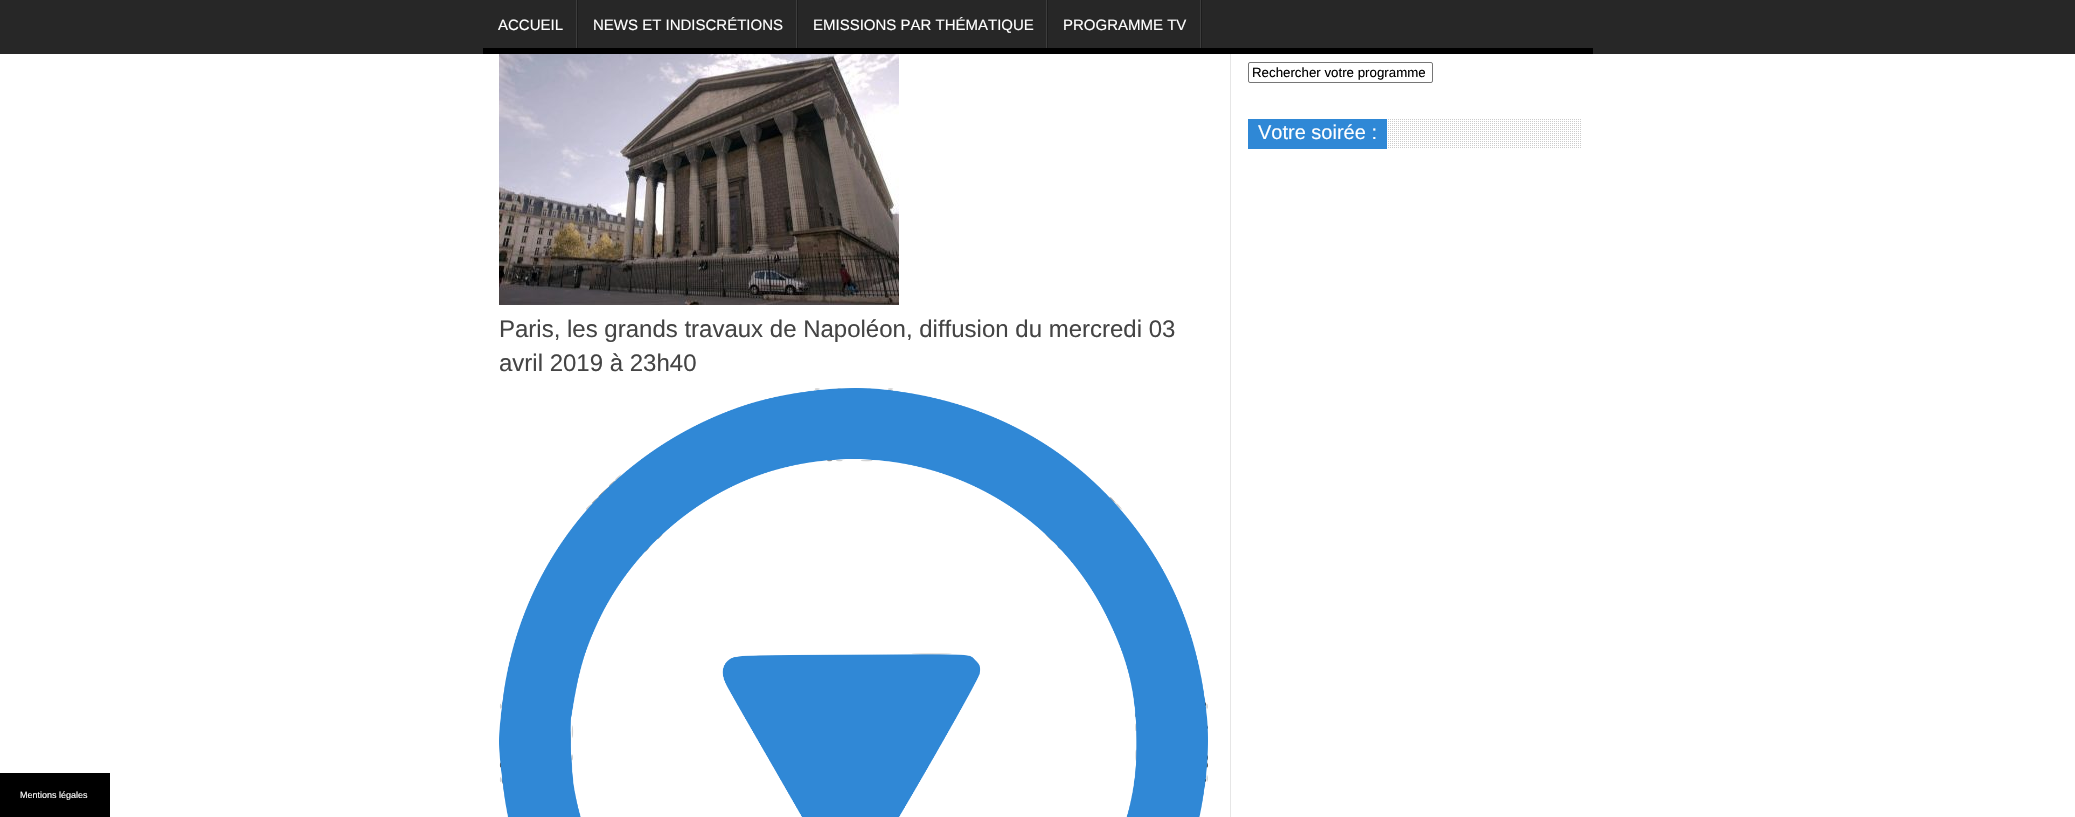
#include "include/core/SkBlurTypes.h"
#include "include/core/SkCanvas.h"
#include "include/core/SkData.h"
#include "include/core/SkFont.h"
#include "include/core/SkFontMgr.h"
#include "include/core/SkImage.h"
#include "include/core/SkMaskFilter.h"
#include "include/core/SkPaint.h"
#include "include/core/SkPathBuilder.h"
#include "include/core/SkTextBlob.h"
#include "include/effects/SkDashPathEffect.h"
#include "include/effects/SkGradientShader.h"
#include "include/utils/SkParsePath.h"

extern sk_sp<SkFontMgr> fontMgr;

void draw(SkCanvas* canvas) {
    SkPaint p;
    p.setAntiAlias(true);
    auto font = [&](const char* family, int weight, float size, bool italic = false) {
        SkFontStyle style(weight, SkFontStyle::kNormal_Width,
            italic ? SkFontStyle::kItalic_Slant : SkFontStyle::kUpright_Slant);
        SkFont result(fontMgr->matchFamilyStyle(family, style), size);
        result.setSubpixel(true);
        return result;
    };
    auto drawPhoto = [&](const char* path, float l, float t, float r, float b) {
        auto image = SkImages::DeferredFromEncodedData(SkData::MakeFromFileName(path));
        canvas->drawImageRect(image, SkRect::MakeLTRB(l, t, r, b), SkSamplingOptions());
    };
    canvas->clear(0xFFFFFFFF);
    p.setColor(0xFF272727);
    canvas->drawRect(SkRect::MakeLTRB(0, 0, 2075, 54), p);
    p.setColor(0xFF000000);
    canvas->drawRect(SkRect::MakeLTRB(1202, 48, 1593, 54), p);
    drawPhoto("media/1.png", 576, 0, 578, 48);
    drawPhoto("media/2.png", 576, 0, 578, 48);
    auto font1 = font("Liberation Sans", 400, 15);
    p.setColor(0xFFFFFFFF);
    canvas->drawString("ACCUEIL", 498, 30, font1, p);
    p.setColor(0xFF000000);
    canvas->drawRect(SkRect::MakeLTRB(483, 48, 1202, 54), p);
    drawPhoto("media/1.png", 796, 0, 798, 48);
    drawPhoto("media/2.png", 796, 0, 798, 48);
    p.setColor(0xFFFFFFFF);
    canvas->drawString("NEWS ET INDISCRÉTIONS", 593, 30, font1, p);
    drawPhoto("media/1.png", 1046, 0, 1048, 48);
    drawPhoto("media/2.png", 1046, 0, 1048, 48);
    canvas->drawString("EMISSIONS PAR THÉMATIQUE", 813, 30, font1, p);
    drawPhoto("media/1.png", 1200, 0, 1202, 48);
    drawPhoto("media/2.png", 1200, 0, 1202, 48);
    canvas->drawString("PROGRAMME TV", 1063, 30, font1, p);
    p.setStyle(SkPaint::kStroke_Style);
    p.setStrokeWidth(1);
    p.setColor(0xFF767676);
    canvas->drawRoundRect(SkRect::MakeLTRB(1248.5f, 62.5f, 1432.5f, 82.5f), 1.5f, 1.5f, p);
    auto font2 = font("Liberation Sans", 400, 13.3f);
    p.setStyle(SkPaint::kFill_Style);
    p.setColor(0xFF000000);
    canvas->drawString("Rechercher votre programme", 1252, 77, font2, p);
    drawPhoto("media/3.png", 1388, 119, 1581, 148);
    p.setColor(0xFF2F88D6);
    canvas->drawRect(SkRect::MakeLTRB(1248, 119, 1387, 149), p);
    auto font3 = font("Liberation Sans", 400, 20);
    p.setColor(0xFFFFFFFF);
    canvas->drawString("Votre soirée :", 1258, 139, font3, p);
    p.setColor(0xFFE6E6E6);
    canvas->drawRect(SkRect::MakeLTRB(1230, 54, 1231, 817), p);
    drawPhoto("media/4.png", 499, 54, 899, 305);
    auto font4 = font("Liberation Sans", 400, 24);
    p.setColor(0xFF444444);
    canvas->drawString("Paris, les grands travaux de Napoléon, diffusion du mercredi 03", 499, 337, font4, p);
    canvas->drawString("avril 2019 à 23h40", 499, 371, font4, p);
    drawPhoto("media/5.png", 499, 388, 1208, 817);
    p.setColor(0xFF000000);
    canvas->drawRect(SkRect::MakeLTRB(0, 773, 110, 817), p);
    auto font5 = font("Liberation Sans", 400, 9);
    p.setColor(0xFFFFFFFF);
    canvas->drawString("Mentions légales", 20, 798, font5, p);
}
